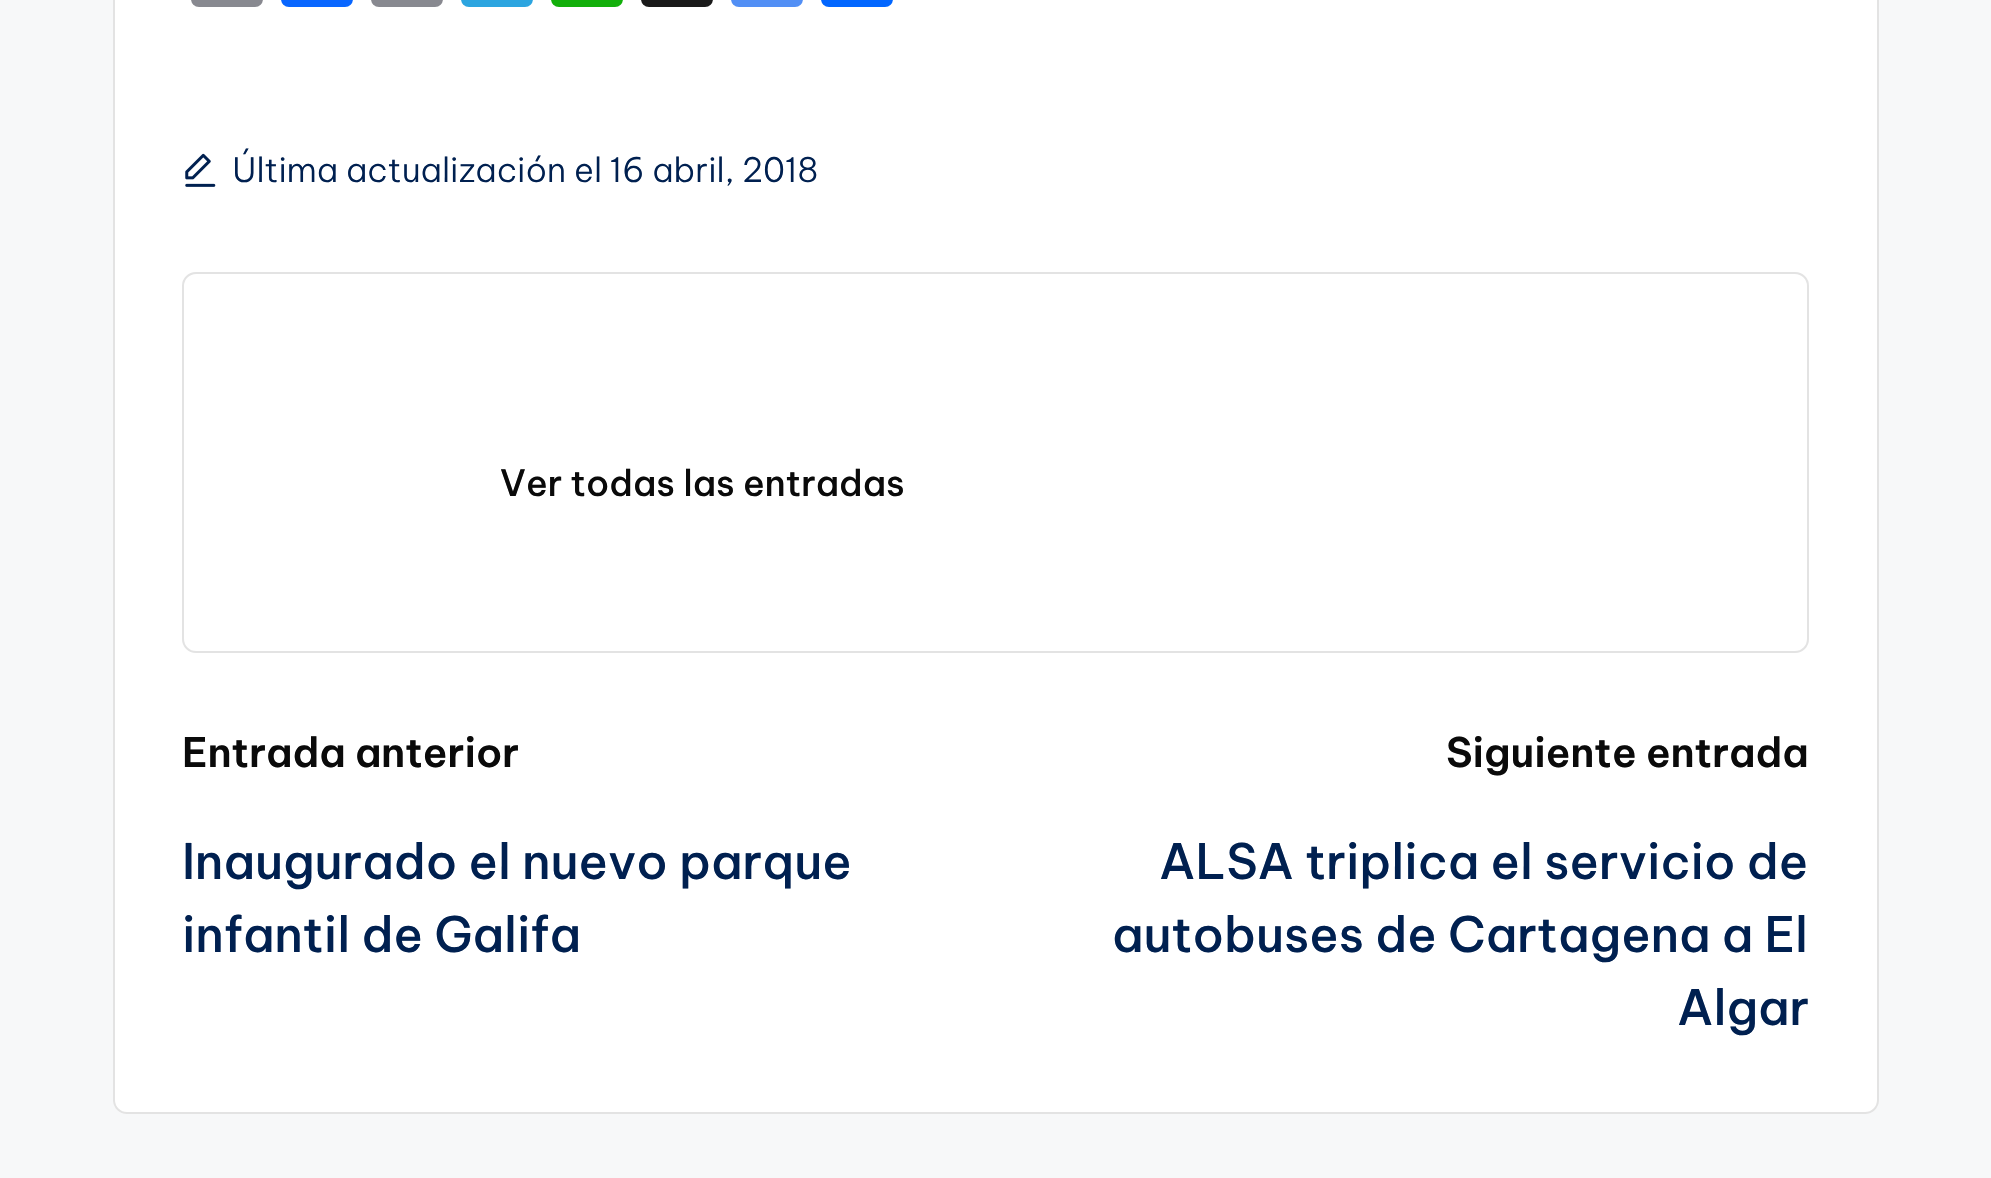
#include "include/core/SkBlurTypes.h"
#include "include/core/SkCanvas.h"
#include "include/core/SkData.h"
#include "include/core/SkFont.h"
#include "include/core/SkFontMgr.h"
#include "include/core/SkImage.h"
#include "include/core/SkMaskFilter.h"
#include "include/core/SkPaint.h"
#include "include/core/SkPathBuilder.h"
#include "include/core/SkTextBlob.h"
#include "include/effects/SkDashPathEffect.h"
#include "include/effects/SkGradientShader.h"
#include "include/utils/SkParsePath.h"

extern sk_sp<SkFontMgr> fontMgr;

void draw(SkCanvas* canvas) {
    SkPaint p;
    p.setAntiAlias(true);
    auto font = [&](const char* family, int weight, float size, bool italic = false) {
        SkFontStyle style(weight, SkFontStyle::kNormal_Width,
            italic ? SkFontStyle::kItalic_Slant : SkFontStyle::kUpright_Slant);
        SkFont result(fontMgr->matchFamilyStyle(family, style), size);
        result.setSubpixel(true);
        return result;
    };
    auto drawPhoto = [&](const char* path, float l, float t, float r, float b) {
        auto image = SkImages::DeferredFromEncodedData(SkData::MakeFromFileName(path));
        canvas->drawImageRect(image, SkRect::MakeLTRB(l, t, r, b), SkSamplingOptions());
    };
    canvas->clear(0xFFF7F8F9);
    p.setColor(0xFFFFFFFF);
    canvas->drawRoundRect(SkRect::MakeLTRB(113, -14, 1879, 1114), 14, 14, p);
    p.setStyle(SkPaint::kStroke_Style);
    p.setStrokeWidth(2);
    p.setColor(0x66B9B9B9);
    canvas->drawRoundRect(SkRect::MakeLTRB(114, -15, 1878, 1113), 13, 13, p);
    p.setStyle(SkPaint::kFill_Style);
    p.setColor(0xFF888990);
    canvas->drawRoundRect(SkRect::MakeLTRB(191, -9, 263, 7), 9, 9, p);
    p.setColor(0xFF0866FF);
    canvas->drawRoundRect(SkRect::MakeLTRB(281, -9, 353, 7), 9, 9, p);
    p.setColor(0xFF888990);
    canvas->drawRoundRect(SkRect::MakeLTRB(371, -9, 443, 7), 9, 9, p);
    p.setColor(0xFF2CA5E0);
    canvas->drawRoundRect(SkRect::MakeLTRB(461, -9, 533, 7), 9, 9, p);
    p.setColor(0xFF12AF0A);
    canvas->drawRoundRect(SkRect::MakeLTRB(551, -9, 623, 7), 9, 9, p);
    p.setColor(0xFF1A1A1A);
    canvas->drawRoundRect(SkRect::MakeLTRB(641, -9, 713, 7), 9, 9, p);
    p.setColor(0xFF528FF5);
    canvas->drawRoundRect(SkRect::MakeLTRB(731, -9, 803, 7), 9, 9, p);
    p.setColor(0xFF0166FF);
    canvas->drawRoundRect(SkRect::MakeLTRB(821, -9, 893, 7), 9, 9, p);
    drawPhoto("media/1.png", 185, 153, 216, 187);
    auto font1 = font("Be Vietnam Pro", 300, 33.6f);
    p.setColor(0xFF002050);
    canvas->drawString("Última actualización el 16 abril, 2018", 232, 182, font1, p);
    p.setStyle(SkPaint::kStroke_Style);
    p.setColor(0xFFE3E3E3);
    canvas->drawRoundRect(SkRect::MakeLTRB(183, 273, 1808, 652), 13, 13, p);
    auto font2 = font("Be Vietnam Pro", 500, 36);
    p.setStyle(SkPaint::kFill_Style);
    p.setColor(0xFF0A0A0A);
    canvas->drawString("Ver todas las entradas", 500, 496, font2, p);
    auto font3 = font("Be Vietnam Pro", 600, 40.5f);
    canvas->drawString("Entrada anterior", 182, 767, font3, p);
    auto font4 = font("Be Vietnam Pro", 500, 48.75f);
    p.setColor(0xFF002050);
    canvas->drawString("Inaugurado el nuevo parque", 182, 879, font4, p);
    canvas->drawString("infantil de Galifa", 182, 952, font4, p);
    p.setColor(0xFF0A0A0A);
    canvas->drawString("Siguiente entrada", 1446, 767, font3, p);
    p.setColor(0xFF002050);
    {
        const struct { const char* s; float x, y; } items[] = {
            {"ALSA triplica el servicio de", 1159, 879},
            {"autobuses de Cartagena a El", 1112, 952},
            {"Algar", 1677, 1025},
        };
        for (auto [s, x, y] : items) {
            canvas->drawString(s, x, y, font4, p);
        }
    }
}
